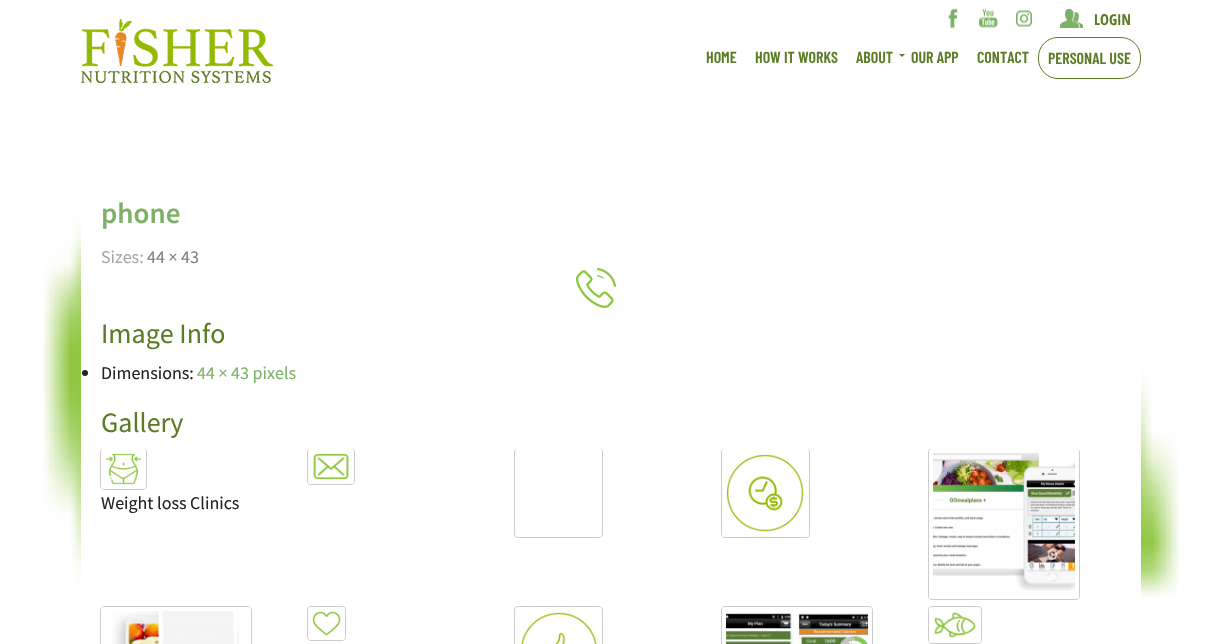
#include "include/core/SkBlurTypes.h"
#include "include/core/SkCanvas.h"
#include "include/core/SkData.h"
#include "include/core/SkFont.h"
#include "include/core/SkFontMgr.h"
#include "include/core/SkImage.h"
#include "include/core/SkMaskFilter.h"
#include "include/core/SkPaint.h"
#include "include/core/SkPathBuilder.h"
#include "include/core/SkTextBlob.h"
#include "include/effects/SkDashPathEffect.h"
#include "include/effects/SkGradientShader.h"
#include "include/utils/SkParsePath.h"

extern sk_sp<SkFontMgr> fontMgr;

void draw(SkCanvas* canvas) {
    SkPaint p;
    p.setAntiAlias(true);
    auto font = [&](const char* family, int weight, float size, bool italic = false) {
        SkFontStyle style(weight, SkFontStyle::kNormal_Width,
            italic ? SkFontStyle::kItalic_Slant : SkFontStyle::kUpright_Slant);
        SkFont result(fontMgr->matchFamilyStyle(family, style), size);
        result.setSubpixel(true);
        return result;
    };
    auto drawPhoto = [&](const char* path, float l, float t, float r, float b) {
        auto image = SkImages::DeferredFromEncodedData(SkData::MakeFromFileName(path));
        canvas->drawImageRect(image, SkRect::MakeLTRB(l, t, r, b), SkSamplingOptions());
    };
    canvas->clear(0xFFFFFFFF);
    drawPhoto("media/1.png", 43, 217, 1179, 597);
    drawPhoto("media/2.png", 81, 19, 273, 83);
    drawPhoto("media/3.png", 948, 8, 958, 29);
    drawPhoto("media/4.png", 979, 8, 998, 28);
    drawPhoto("media/5.png", 1016, 10, 1032, 27);
    drawPhoto("media/6.png", 1055, 2, 1085, 35);
    auto font1 = font("Open Sans Condensed", 700, 15);
    p.setColor(0xFF5B7C25);
    canvas->drawString("LOGIN", 1094, 25, font1, p);
    auto font2 = font("Barlow Condensed", 600, 16);
    {
        const struct { const char* s; float x, y; } items[] = {
            {"HOME", 706, 63},
            {"HOW IT WORKS", 755, 63},
            {"ABOUT", 856, 63},
        };
        for (auto [s, x, y] : items) {
            canvas->drawString(s, x, y, font2, p);
        }
    }
    canvas->drawPath(SkPathBuilder().moveTo(899, 54).lineTo(905, 54).lineTo(902, 57).close().detach(), p);
    canvas->drawString("OUR APP", 911, 63, font2, p);
    canvas->drawString("CONTACT", 977, 63, font2, p);
    p.setStyle(SkPaint::kStroke_Style);
    p.setStrokeWidth(1);
    canvas->drawRoundRect(SkRect::MakeLTRB(1038.5f, 37.5f, 1140.5f, 78.5f), 19.5f, 19.5f, p);
    p.setStyle(SkPaint::kFill_Style);
    canvas->drawString("PERSONAL USE", 1048, 64, font2, p);
    p.setColor(0xFFFFFFFF);
    canvas->drawRect(SkRect::MakeLTRB(81, 217, 1141, 597), p);
    auto font3 = font("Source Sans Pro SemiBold", 600, 29);
    p.setColor(0xFF7EB168);
    canvas->drawString("phone", 101, 223, font3, p);
    auto font4 = font("Source Sans Pro", 400, 18);
    p.setColor(0xFFA7A7A7);
    canvas->drawString("Sizes:", 101, 263, font4, p);
    p.setColor(0xFF808080);
    canvas->drawString("44 × 43", 147, 263, font4, p);
    drawPhoto("media/7.png", 576, 268, 616, 308);
    auto font5 = font("Source Sans Pro", 400, 28);
    p.setColor(0xFF5B7C25);
    canvas->drawString("Image Info", 101, 343, font5, p);
    p.setColor(0xFF222222);
    canvas->drawCircle(85, 373, 3, p);
    canvas->drawString("Dimensions:", 101, 379, font4, p);
    p.setColor(0xFF7EB168);
    canvas->drawString("44 × 43 pixels", 197, 379, font4, p);
    p.setColor(0xFF5B7C25);
    canvas->drawString("Gallery", 101, 432, font5, p);
    canvas->save();
    canvas->clipRect(SkRect::MakeLTRB(93, 449, 1129, 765));
    p.setStyle(SkPaint::kStroke_Style);
    p.setColor(0xFFCCCCCC);
    canvas->drawRoundRect(SkRect::MakeLTRB(100.5f, 448.5f, 146.5f, 489.5f), 3.5f, 3.5f, p);
    canvas->restore();
    p.setStrokeWidth(4);
    p.setColor(0xFFFFFFFF);
    canvas->drawRoundRect(SkRect::MakeLTRB(103, 451, 144, 487), 1, 1, p);
    drawPhoto("media/8.png", 105, 453, 142, 485);
    p.setStyle(SkPaint::kFill_Style);
    p.setColor(0xFF222222);
    canvas->drawString("Weight loss Clinics", 101, 509, font4, p);
    canvas->save();
    canvas->clipRect(SkRect::MakeLTRB(93, 449, 1129, 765));
    p.setStyle(SkPaint::kStroke_Style);
    p.setStrokeWidth(1);
    p.setColor(0xFFCCCCCC);
    canvas->drawRoundRect(SkRect::MakeLTRB(307.5f, 448.5f, 354.5f, 484.5f), 3.5f, 3.5f, p);
    canvas->restore();
    p.setStrokeWidth(4);
    p.setColor(0xFFFFFFFF);
    canvas->drawRoundRect(SkRect::MakeLTRB(310, 451, 352, 482), 1, 1, p);
    drawPhoto("media/9.png", 313, 453, 349, 480);
    canvas->save();
    canvas->clipRect(SkRect::MakeLTRB(93, 449, 1129, 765));
    p.setStrokeWidth(1);
    p.setColor(0xFFCCCCCC);
    canvas->drawRoundRect(SkRect::MakeLTRB(514.5f, 448.5f, 602.5f, 537.5f), 3.5f, 3.5f, p);
    canvas->restore();
    p.setStrokeWidth(4);
    p.setColor(0xFFFFFFFF);
    canvas->drawRoundRect(SkRect::MakeLTRB(517, 451, 600, 535), 1, 1, p);
    canvas->save();
    canvas->clipRect(SkRect::MakeLTRB(93, 449, 1129, 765));
    p.setStrokeWidth(1);
    p.setColor(0xFFCCCCCC);
    canvas->drawRoundRect(SkRect::MakeLTRB(721.5f, 448.5f, 809.5f, 537.5f), 3.5f, 3.5f, p);
    canvas->restore();
    p.setStrokeWidth(4);
    p.setColor(0xFFFFFFFF);
    canvas->drawRoundRect(SkRect::MakeLTRB(724, 451, 807, 535), 1, 1, p);
    drawPhoto("media/10.png", 727, 454, 804, 532);
    canvas->save();
    canvas->clipRect(SkRect::MakeLTRB(93, 449, 1129, 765));
    p.setStrokeWidth(1);
    p.setColor(0xFFCCCCCC);
    canvas->drawRoundRect(SkRect::MakeLTRB(928.5f, 448.5f, 1079.5f, 599.5f), 3.5f, 3.5f, p);
    canvas->restore();
    p.setStrokeWidth(4);
    p.setColor(0xFFFFFFFF);
    canvas->drawRoundRect(SkRect::MakeLTRB(931, 451, 1077, 597), 1, 1, p);
    drawPhoto("media/11.png", 933, 453, 1075, 591);
    p.setStrokeWidth(1);
    p.setColor(0xFFCCCCCC);
    canvas->drawRoundRect(SkRect::MakeLTRB(100.5f, 606.5f, 251.5f, 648.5f), 3.5f, 3.5f, p);
    p.setStrokeWidth(4);
    p.setColor(0xFFFFFFFF);
    canvas->drawRoundRect(SkRect::MakeLTRB(103, 609, 249, 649), 1, 1, p);
    drawPhoto("media/12.png", 112, 611, 239, 644);
    p.setStrokeWidth(1);
    p.setColor(0xFFCCCCCC);
    canvas->drawRoundRect(SkRect::MakeLTRB(307.5f, 606.5f, 345.5f, 640.5f), 3.5f, 3.5f, p);
    p.setStrokeWidth(4);
    p.setColor(0xFFFFFFFF);
    canvas->drawRoundRect(SkRect::MakeLTRB(310, 609, 343, 638), 1, 1, p);
    drawPhoto("media/13.png", 312, 611, 341, 636);
    p.setStrokeWidth(1);
    p.setColor(0xFFCCCCCC);
    canvas->drawRoundRect(SkRect::MakeLTRB(514.5f, 606.5f, 602.5f, 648.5f), 3.5f, 3.5f, p);
    p.setStrokeWidth(4);
    p.setColor(0xFFFFFFFF);
    canvas->drawRoundRect(SkRect::MakeLTRB(517, 609, 600, 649), 1, 1, p);
    drawPhoto("media/14.png", 521, 612, 597, 644);
    p.setStrokeWidth(1);
    p.setColor(0xFFCCCCCC);
    canvas->drawRoundRect(SkRect::MakeLTRB(721.5f, 606.5f, 872.5f, 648.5f), 3.5f, 3.5f, p);
    p.setStrokeWidth(4);
    p.setColor(0xFFFFFFFF);
    canvas->drawRoundRect(SkRect::MakeLTRB(724, 609, 870, 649), 1, 1, p);
    drawPhoto("media/15.png", 726, 613, 868, 644);
    p.setStrokeWidth(1);
    p.setColor(0xFFCCCCCC);
    canvas->drawRoundRect(SkRect::MakeLTRB(928.5f, 606.5f, 981.5f, 643.5f), 3.5f, 3.5f, p);
    p.setStrokeWidth(4);
    p.setColor(0xFFFFFFFF);
    canvas->drawRoundRect(SkRect::MakeLTRB(931, 609, 979, 641), 1, 1, p);
    drawPhoto("media/16.png", 934, 612, 976, 638);
}
